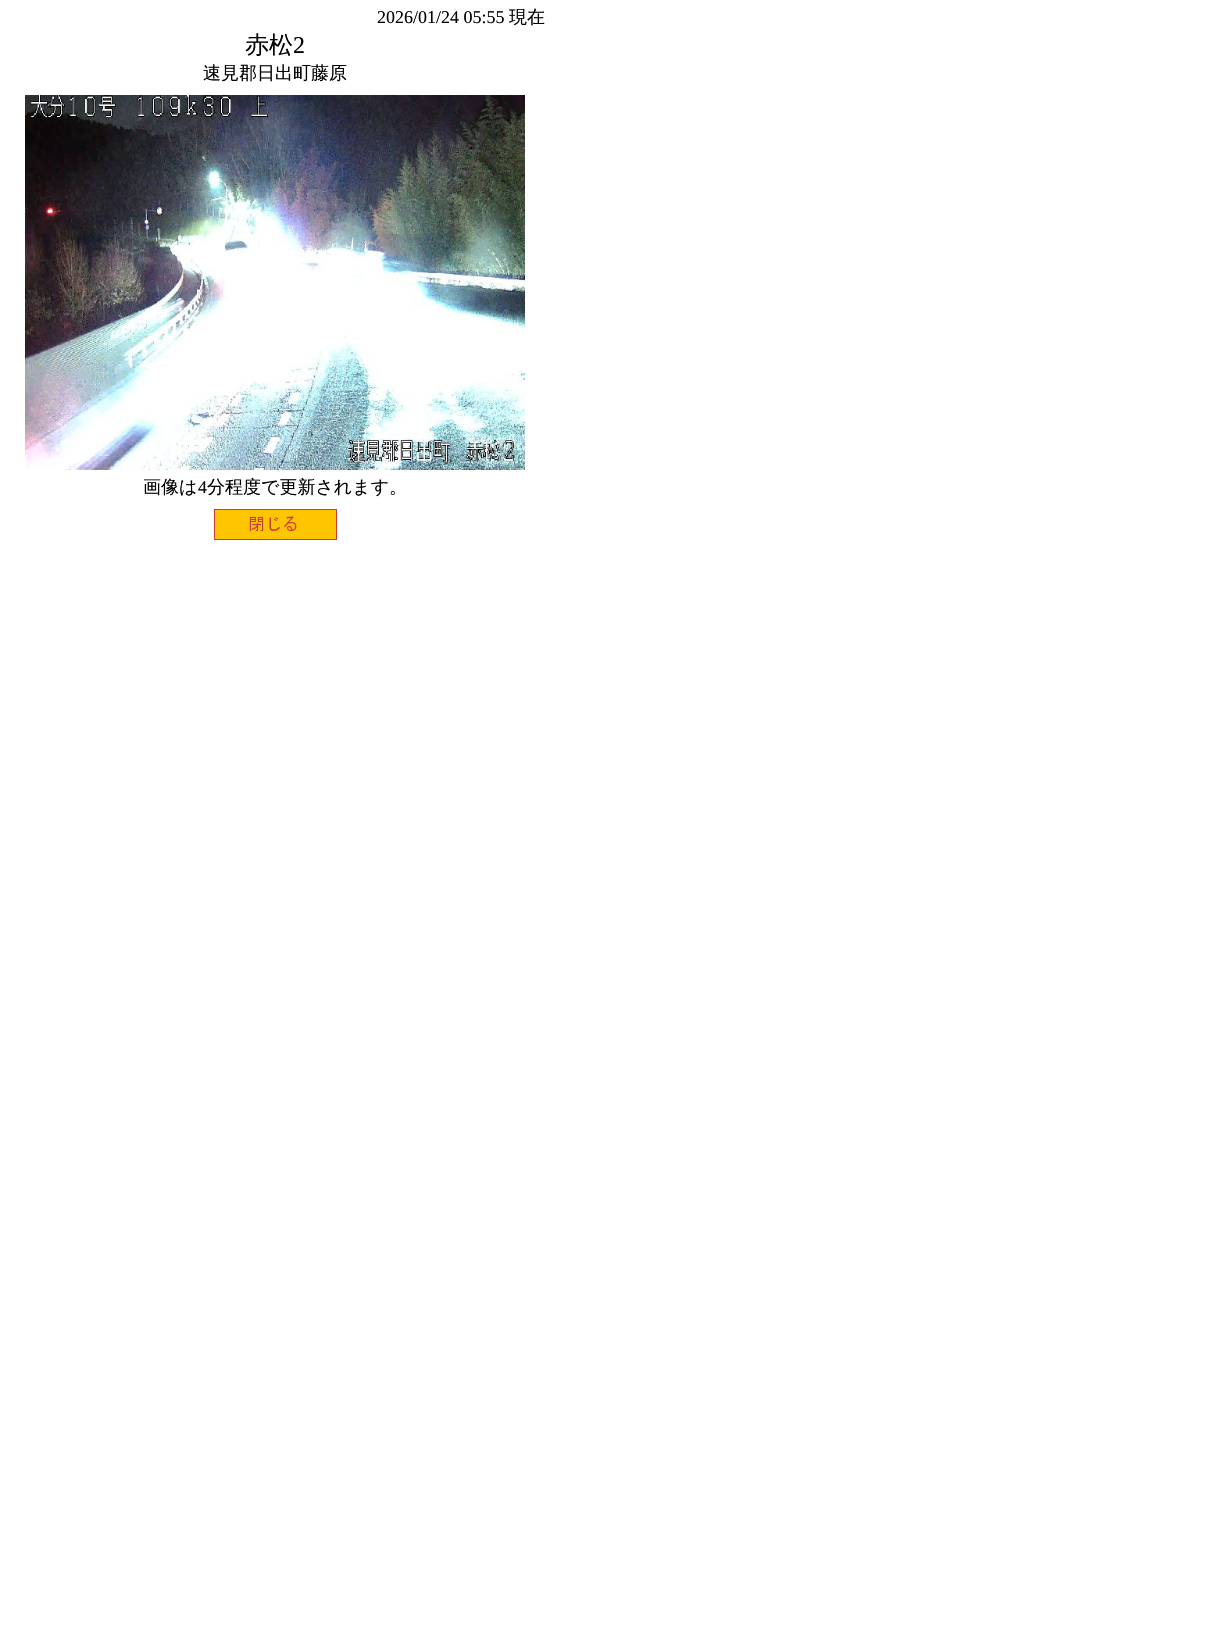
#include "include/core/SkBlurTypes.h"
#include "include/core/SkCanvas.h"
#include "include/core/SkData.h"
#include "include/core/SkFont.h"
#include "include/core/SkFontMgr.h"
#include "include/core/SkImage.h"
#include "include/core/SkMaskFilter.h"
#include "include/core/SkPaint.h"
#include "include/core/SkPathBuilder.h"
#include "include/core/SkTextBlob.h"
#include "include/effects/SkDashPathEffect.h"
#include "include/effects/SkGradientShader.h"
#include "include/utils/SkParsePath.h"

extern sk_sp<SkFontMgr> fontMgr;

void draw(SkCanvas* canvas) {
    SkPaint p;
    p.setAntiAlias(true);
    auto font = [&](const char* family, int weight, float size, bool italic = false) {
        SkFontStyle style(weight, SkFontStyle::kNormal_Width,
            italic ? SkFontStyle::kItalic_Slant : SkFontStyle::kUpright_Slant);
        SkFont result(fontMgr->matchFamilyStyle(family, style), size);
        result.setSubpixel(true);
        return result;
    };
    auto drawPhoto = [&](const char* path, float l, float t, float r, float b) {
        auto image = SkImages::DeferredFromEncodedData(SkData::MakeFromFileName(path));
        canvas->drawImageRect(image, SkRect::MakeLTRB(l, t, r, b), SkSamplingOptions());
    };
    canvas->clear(0xFFFFFFFF);
    auto font1 = font("Liberation Serif", 400, 18);
    p.setColor(0xFF000000);
    canvas->drawString("2026/01/24 05:55", 377, 23, font1, p);
    auto font2 = font("WenQuanYi Zen Hei", 500, 18);
    canvas->drawString("現在", 509, 23, font2, p);
    auto font3 = font("WenQuanYi Zen Hei", 500, 24);
    canvas->drawString("赤松", 245, 53, font3, p);
    auto font4 = font("Liberation Serif", 400, 24);
    canvas->drawString("2", 293, 53, font4, p);
    canvas->drawString("速見郡日出町藤原", 203, 79, font2, p);
    drawPhoto("media/1.png", 25, 95, 525, 470);
    canvas->drawString("画像は", 143, 493, font2, p);
    canvas->drawString("4", 198, 493, font1, p);
    canvas->drawString("分程度で更新されます。", 207, 493, font2, p);
    drawPhoto("media/2.png", 214, 509, 337, 540);
}
